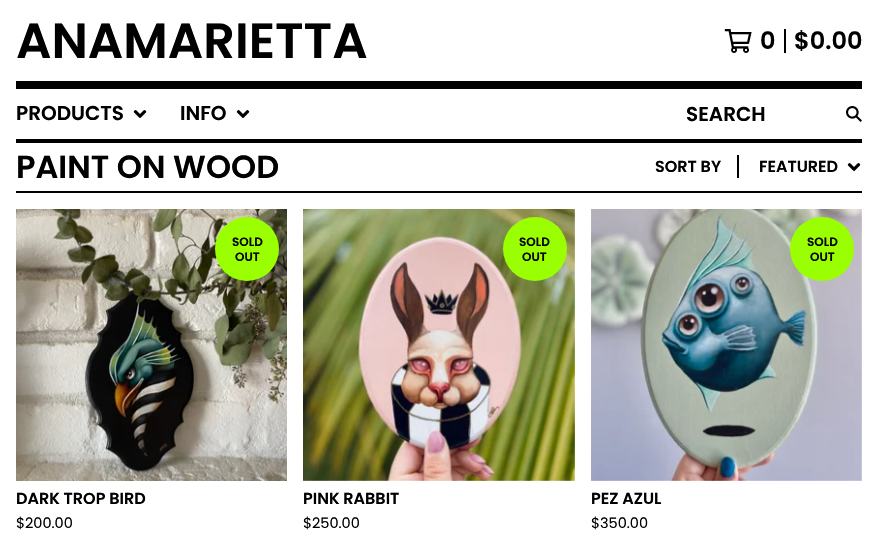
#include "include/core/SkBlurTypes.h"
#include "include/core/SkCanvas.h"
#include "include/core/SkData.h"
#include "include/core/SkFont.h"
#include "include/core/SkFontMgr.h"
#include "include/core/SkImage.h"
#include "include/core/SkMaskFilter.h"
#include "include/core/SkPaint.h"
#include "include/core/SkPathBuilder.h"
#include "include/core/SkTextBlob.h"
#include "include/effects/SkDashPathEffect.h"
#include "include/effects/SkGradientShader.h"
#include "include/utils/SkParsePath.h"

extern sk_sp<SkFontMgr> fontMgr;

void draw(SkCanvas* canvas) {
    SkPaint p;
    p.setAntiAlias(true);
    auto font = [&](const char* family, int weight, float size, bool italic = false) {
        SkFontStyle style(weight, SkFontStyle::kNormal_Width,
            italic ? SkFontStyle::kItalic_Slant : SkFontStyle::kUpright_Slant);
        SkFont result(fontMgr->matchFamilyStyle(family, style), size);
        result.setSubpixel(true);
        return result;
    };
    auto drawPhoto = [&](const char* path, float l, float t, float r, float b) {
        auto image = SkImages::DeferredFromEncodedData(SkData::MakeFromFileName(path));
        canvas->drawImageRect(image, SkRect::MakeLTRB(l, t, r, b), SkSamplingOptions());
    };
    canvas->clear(0xFFFFFFFF);
    p.setColor(0xFF000000);
    canvas->drawRect(SkRect::MakeLTRB(16, 81, 862, 89), p);
    auto font1 = font("Poppins", 600, 49.5f);
    canvas->drawString("ANAMARIETTA", 16, 58, font1, p);
    drawPhoto("media/1.png", 724, 29, 752, 53);
    canvas->drawRect(SkRect::MakeLTRB(784, 29, 786, 53), p);
    auto font2 = font("Poppins", 600, 24);
    canvas->drawString("0", 760, 49, font2, p);
    canvas->drawString("$0.00", 794, 49, font2, p);
    canvas->drawRect(SkRect::MakeLTRB(16, 139, 862, 143), p);
    auto font3 = font("Poppins", 600, 20);
    canvas->drawString("PRODUCTS", 16, 120, font3, p);
    drawPhoto("media/2.png", 133, 110, 147, 118);
    canvas->drawString("INFO", 180, 120, font3, p);
    drawPhoto("media/2.png", 236, 110, 250, 118);
    canvas->drawString("SEARCH", 686, 121, font3, p);
    drawPhoto("media/3.png", 846, 106, 862, 122);
    canvas->drawRect(SkRect::MakeLTRB(16, 191, 862, 193), p);
    auto font4 = font("Poppins", 600, 32);
    canvas->drawString("PAINT ON WOOD", 16, 178, font4, p);
    auto font5 = font("Poppins", 600, 16);
    canvas->drawString("SORT BY", 655, 172, font5, p);
    canvas->drawRect(SkRect::MakeLTRB(737, 155, 739, 178), p);
    canvas->drawString("FEATURED", 759, 172, font5, p);
    drawPhoto("media/2.png", 847, 163, 861, 171);
    drawPhoto("media/4.png", 16, 209, 287, 481);
    p.setColor(0xFF9AFF00);
    canvas->drawCircle(247, 249, 32, p);
    auto font6 = font("Poppins", 600, 12);
    p.setColor(0xFF000000);
    canvas->drawString("SOLD", 232, 246, font6, p);
    canvas->drawString("OUT", 235, 261, font6, p);
    canvas->drawString("DARK TROP BIRD", 16, 504, font5, p);
    auto font7 = font("Poppins", 400, 14.5f);
    canvas->drawString("$200.00", 16, 528, font7, p);
    drawPhoto("media/5.png", 303, 209, 575, 481);
    p.setColor(0xFF9AFF00);
    canvas->drawCircle(535, 249, 32, p);
    p.setColor(0xFF000000);
    canvas->drawString("SOLD", 519, 246, font6, p);
    canvas->drawString("OUT", 522, 261, font6, p);
    canvas->drawString("PINK RABBIT", 303, 504, font5, p);
    canvas->drawString("$250.00", 303, 528, font7, p);
    drawPhoto("media/6.png", 591, 209, 862, 481);
    p.setColor(0xFF9AFF00);
    canvas->drawCircle(822, 249, 32, p);
    p.setColor(0xFF000000);
    canvas->drawString("SOLD", 807, 246, font6, p);
    canvas->drawString("OUT", 810, 261, font6, p);
    canvas->drawString("PEZ AZUL", 591, 504, font5, p);
    canvas->drawString("$350.00", 591, 528, font7, p);
}
